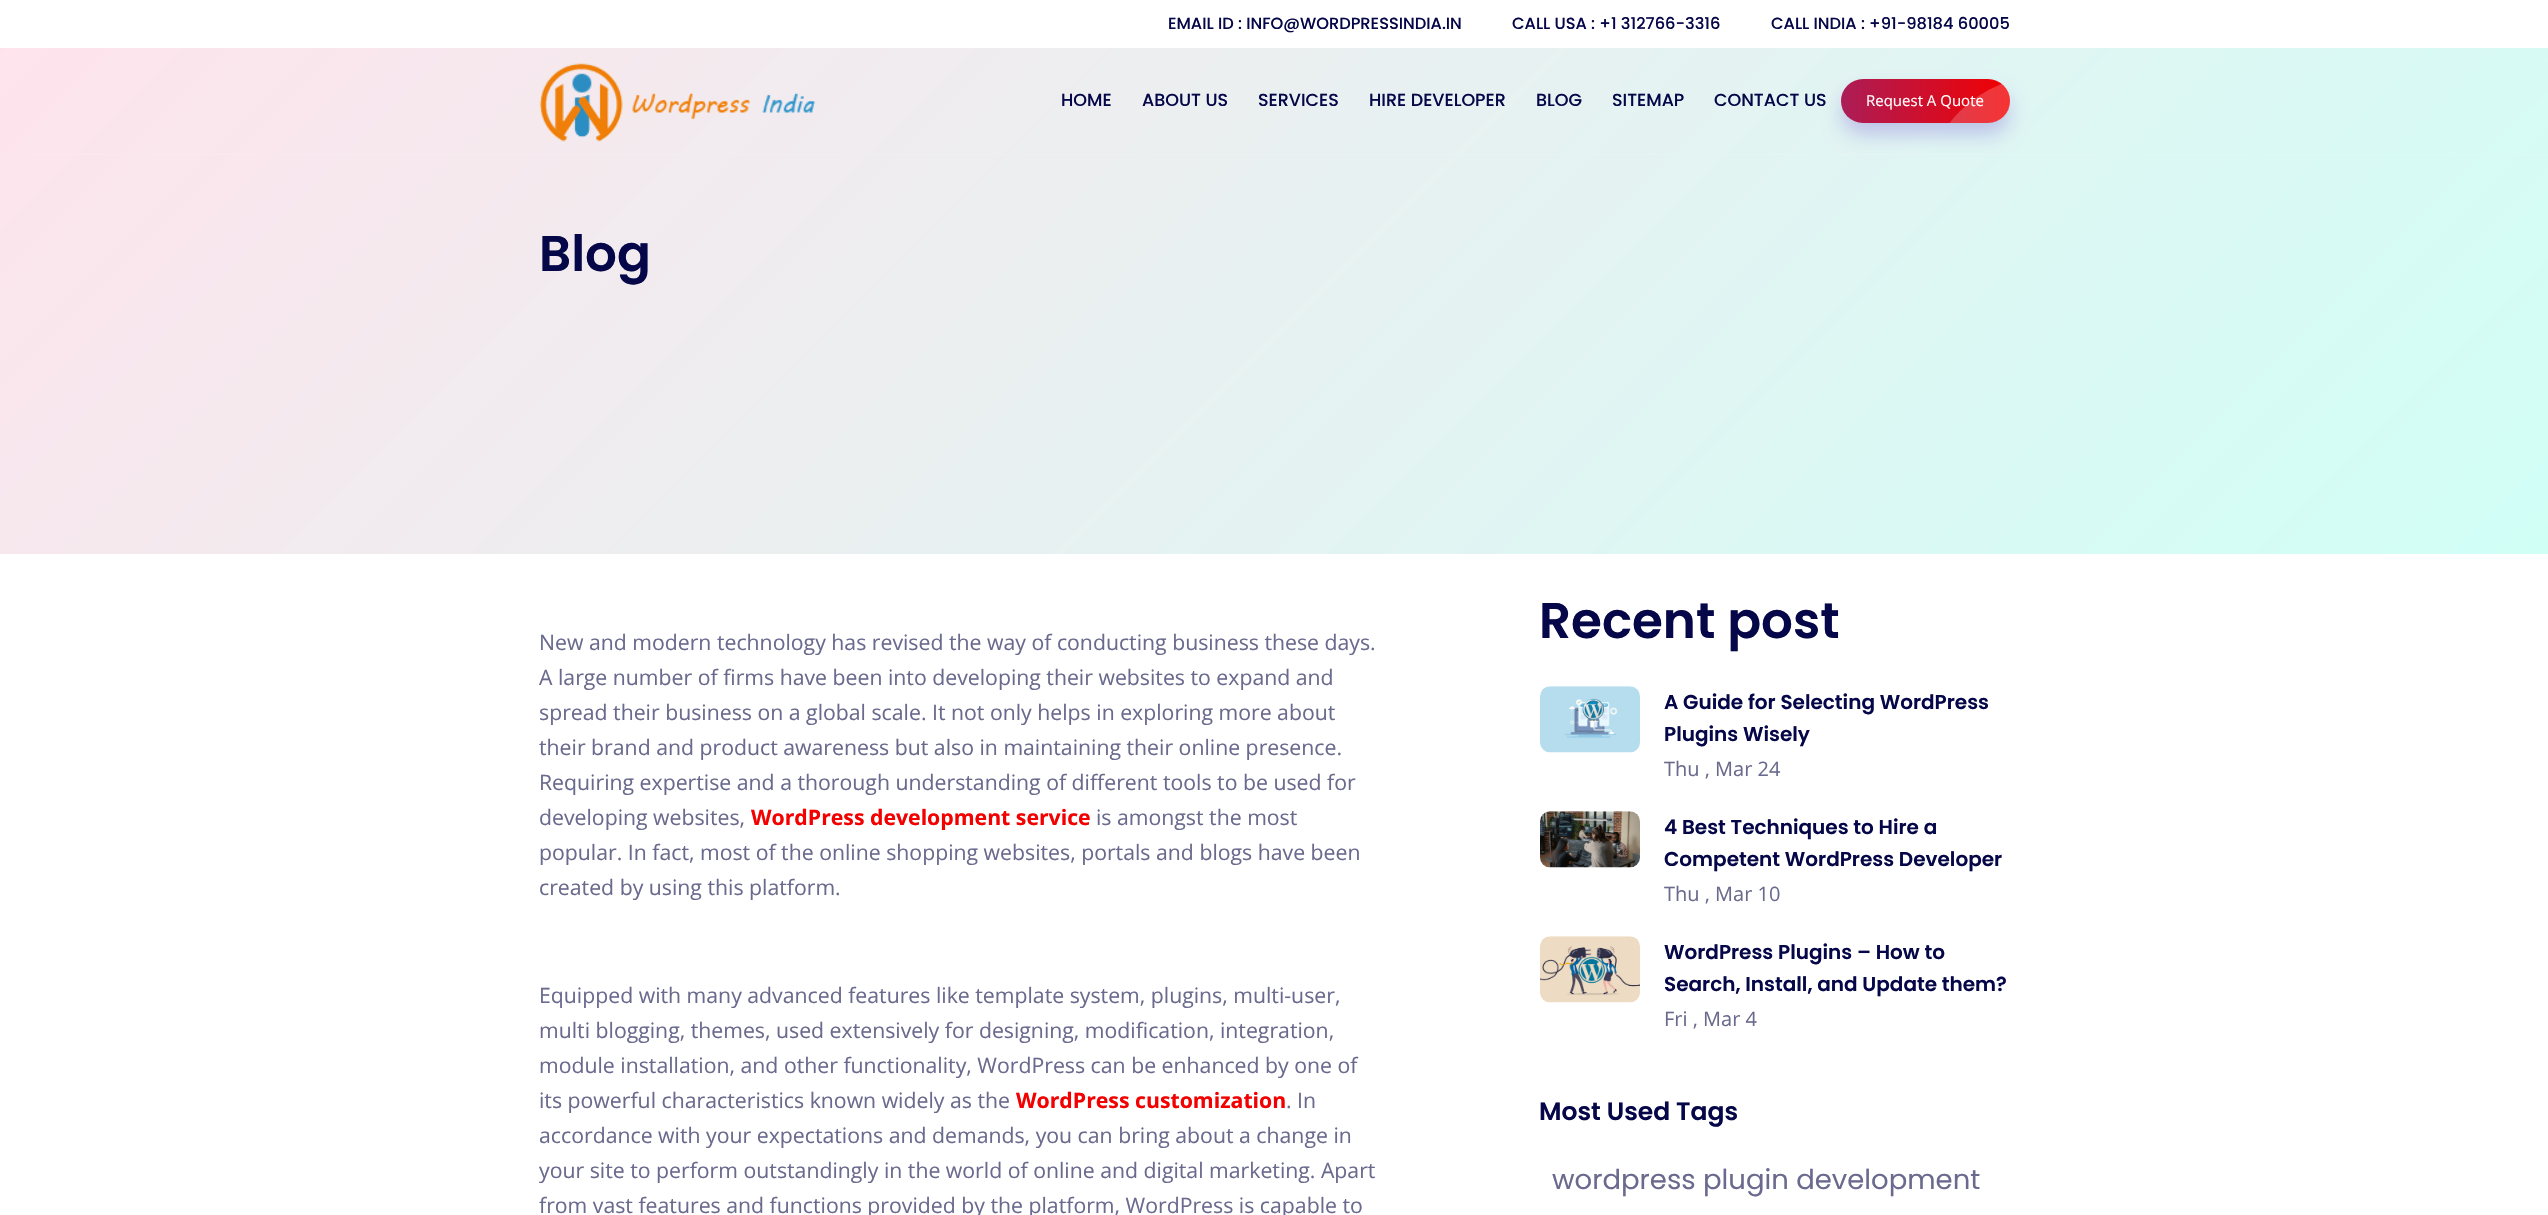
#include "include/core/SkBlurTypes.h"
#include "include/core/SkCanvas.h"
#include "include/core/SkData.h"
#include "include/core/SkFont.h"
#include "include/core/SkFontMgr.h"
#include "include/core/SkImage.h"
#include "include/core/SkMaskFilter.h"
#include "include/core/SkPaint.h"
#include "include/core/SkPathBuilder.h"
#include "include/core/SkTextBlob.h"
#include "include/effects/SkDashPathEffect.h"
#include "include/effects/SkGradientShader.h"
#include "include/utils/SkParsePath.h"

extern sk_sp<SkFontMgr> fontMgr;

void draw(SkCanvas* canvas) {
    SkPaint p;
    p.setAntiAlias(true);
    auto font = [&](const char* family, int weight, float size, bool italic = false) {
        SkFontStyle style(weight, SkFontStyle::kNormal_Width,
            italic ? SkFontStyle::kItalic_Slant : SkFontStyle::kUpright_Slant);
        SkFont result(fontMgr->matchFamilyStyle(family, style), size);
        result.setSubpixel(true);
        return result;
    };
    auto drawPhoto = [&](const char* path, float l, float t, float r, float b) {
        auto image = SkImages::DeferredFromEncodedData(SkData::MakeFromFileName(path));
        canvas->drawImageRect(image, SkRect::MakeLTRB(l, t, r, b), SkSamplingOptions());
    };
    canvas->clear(0xFFFFFFFF);
    auto font1 = font("Poppins", 500, 16.25f);
    p.setColor(0xFF050748);
    {
        const struct { const char* s; float x, y; } items[] = {
            {"EMAIL ID : INFO@WORDPRESSINDIA.IN", 1168, 29},
            {"CALL USA : +1 312766-3316", 1512, 29},
            {"CALL INDIA : +91-98184 60005", 1771, 29},
        };
        for (auto [s, x, y] : items) {
            canvas->drawString(s, x, y, font1, p);
        }
    }
    {
        const SkColor colors[] = {0xFFFFE3EC, 0xFFD0FFF6};
        const float stops[] = {0, 1};
        const SkPoint ends[] = {{499, -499}, {2050, 1053}};
        p.setShader(SkGradientShader::MakeLinear(ends, colors, stops, 2, SkTileMode::kClamp));
        p.setAlpha(255);
    }
    canvas->drawRect(SkRect::MakeLTRB(0, 48, 2548, 554), p);
    drawPhoto("media/1.png", 539, 63, 816, 142);
    auto font2 = font("Poppins", 500, 17.5f);
    p.setShader(nullptr);
    p.setColor(0xFF050748);
    {
        const struct { const char* s; float x, y; } items[] = {
            {"HOME", 1061, 106},
            {"ABOUT US", 1142, 106},
            {"SERVICES", 1258, 106},
            {"HIRE DEVELOPER", 1369, 106},
            {"BLOG", 1536, 106},
            {"SITEMAP", 1612, 106},
            {"CONTACT US", 1714, 106},
        };
        for (auto [s, x, y] : items) {
            canvas->drawString(s, x, y, font2, p);
        }
    }
    {
        const SkColor colors[] = {0xFFFFE6EE, 0xFFD5FFF7};
        const float stops[] = {0, 1};
        const SkPoint ends[] = {{499, -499}, {2050, 1053}};
        p.setShader(SkGradientShader::MakeLinear(ends, colors, stops, 2, SkTileMode::kClamp));
        p.setAlpha(255);
    }
    canvas->drawRect(SkRect::MakeLTRB(0, 154, 2548, 155), p);
    p.setShader(nullptr);
    p.setColor(0x333800BD);
    p.setMaskFilter(SkMaskFilter::MakeBlur(kNormal_SkBlurStyle, 9.5f));
    canvas->drawRoundRect(SkRect::MakeLTRB(1841, 91, 2010, 135), 22, 22, p);
    p.setMaskFilter(nullptr);
    {
        const SkColor colors[] = {0xFFAB1D57, 0xFFF30000};
        const float stops[] = {0, 1};
        const SkPoint ends[] = {{1841, 101}, {2010, 101}};
        p.setShader(SkGradientShader::MakeLinear(ends, colors, stops, 2, SkTileMode::kClamp));
        p.setAlpha(255);
    }
    canvas->drawRoundRect(SkRect::MakeLTRB(1841, 79, 2010, 123), 22, 22, p);
    auto font3 = font("Open Sans", 400, 15);
    p.setShader(nullptr);
    p.setColor(0xFFFFFFFF);
    canvas->drawString("Request A Quote", 1866, 106, font3, p);
    canvas->save();
    canvas->clipPath(SkPathBuilder().moveTo(1863, 79).lineTo(1988, 79).cubicTo(2000, 79, 2010, 89, 2010, 101).cubicTo(2010, 113, 2000, 123, 1988, 123).lineTo(1863, 123).cubicTo(1851, 123, 1841, 113, 1841, 101).cubicTo(1841, 89, 1851, 79, 1863, 79).close().detach(), true);
    p.setColor(0x33FFFFFF);
    canvas->drawCircle(2048, 200, 125, p);
    canvas->restore();
    auto font4 = font("Poppins", 600, 50);
    p.setColor(0xFF050748);
    canvas->drawString("Blog", 539, 271, font4, p);
    auto font5 = font("Open Sans", 400, 21.25f);
    p.setColor(0xFF6A6A8E);
    {
        const struct { const char* s; float x, y; } items[] = {
            {"New and modern technology has revised the way of conducting business these days.", 539, 650},
            {"A large number of firms have been into developing their websites to expand and", 539, 685},
            {"spread their business on a global scale. It not only helps in exploring more about", 539, 720},
            {"their brand and product awareness but also in maintaining their online presence.", 539, 755},
            {"Requiring expertise and a thorough understanding of different tools to be used for", 539, 790},
            {"developing websites,", 539, 825},
        };
        for (auto [s, x, y] : items) {
            canvas->drawString(s, x, y, font5, p);
        }
    }
    auto font6 = font("Open Sans", 700, 21.25f);
    p.setColor(0xFFF30000);
    canvas->drawString("WordPress development service", 751, 825, font6, p);
    p.setColor(0xFF6A6A8E);
    {
        const struct { const char* s; float x, y; } items[] = {
            {"is amongst the most", 1096, 825},
            {"popular. In fact, most of the online shopping websites, portals and blogs have been", 539, 860},
            {"created by using this platform.", 539, 895},
            {"Equipped with many advanced features like template system, plugins, multi-user,", 539, 1003},
            {"multi blogging, themes, used extensively for designing, modification, integration,", 539, 1038},
            {"module installation, and other functionality, WordPress can be enhanced by one of", 539, 1073},
            {"its powerful characteristics known widely as the", 539, 1108},
        };
        for (auto [s, x, y] : items) {
            canvas->drawString(s, x, y, font5, p);
        }
    }
    p.setColor(0xFFF30000);
    canvas->drawString("WordPress customization", 1016, 1108, font6, p);
    p.setColor(0xFF6A6A8E);
    {
        const struct { const char* s; float x, y; } items[] = {
            {". In", 1286, 1108},
            {"accordance with your expectations and demands, you can bring about a change in", 539, 1143},
            {"your site to perform outstandingly in the world of online and digital marketing. Apart", 539, 1178},
            {"from vast features and functions provided by the platform, WordPress is capable to", 539, 1213},
        };
        for (auto [s, x, y] : items) {
            canvas->drawString(s, x, y, font5, p);
        }
    }
    p.setColor(0xFF050748);
    canvas->drawString("Recent post", 1539, 638, font4, p);
    drawPhoto("media/2.png", 1540, 686, 1640, 753);
    auto font7 = font("Poppins", 600, 20);
    canvas->drawString("A Guide for Selecting WordPress", 1664, 709, font7, p);
    canvas->drawString("Plugins Wisely", 1664, 741, font7, p);
    auto font8 = font("Open Sans", 400, 20);
    p.setColor(0xFF6A6A8E);
    canvas->drawString("Thu , Mar 24", 1664, 776, font8, p);
    drawPhoto("media/3.png", 1540, 811, 1640, 868);
    p.setColor(0xFF050748);
    canvas->drawString("4 Best Techniques to Hire a", 1664, 834, font7, p);
    canvas->drawString("Competent WordPress Developer", 1664, 866, font7, p);
    p.setColor(0xFF6A6A8E);
    canvas->drawString("Thu , Mar 10", 1664, 901, font8, p);
    drawPhoto("media/4.png", 1540, 936, 1640, 1003);
    p.setColor(0xFF050748);
    canvas->drawString("WordPress Plugins – How to", 1664, 959, font7, p);
    canvas->drawString("Search, Install, and Update them?", 1664, 991, font7, p);
    p.setColor(0xFF6A6A8E);
    canvas->drawString("Fri , Mar 4", 1664, 1026, font8, p);
    auto font9 = font("Poppins", 600, 25);
    p.setColor(0xFF050748);
    canvas->drawString("Most Used Tags", 1539, 1120, font9, p);
    auto font10 = font("Poppins", 400, 27.5f);
    p.setColor(0xFF6A6A8E);
    canvas->drawString("wordpress plugin development", 1552, 1189, font10, p);
}
